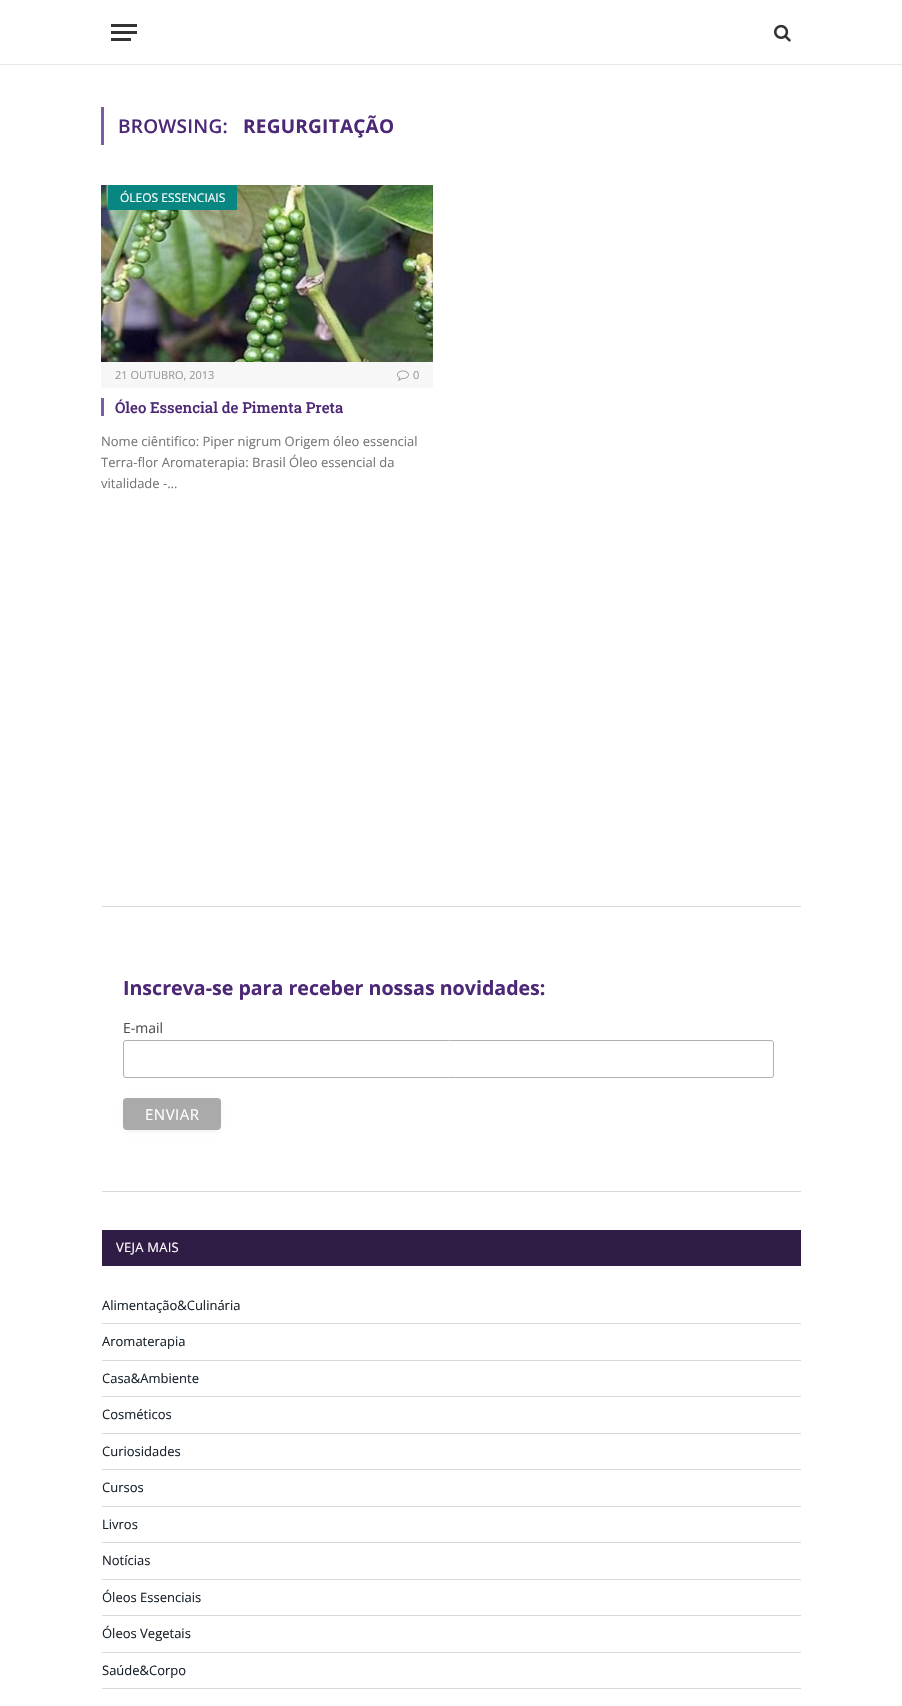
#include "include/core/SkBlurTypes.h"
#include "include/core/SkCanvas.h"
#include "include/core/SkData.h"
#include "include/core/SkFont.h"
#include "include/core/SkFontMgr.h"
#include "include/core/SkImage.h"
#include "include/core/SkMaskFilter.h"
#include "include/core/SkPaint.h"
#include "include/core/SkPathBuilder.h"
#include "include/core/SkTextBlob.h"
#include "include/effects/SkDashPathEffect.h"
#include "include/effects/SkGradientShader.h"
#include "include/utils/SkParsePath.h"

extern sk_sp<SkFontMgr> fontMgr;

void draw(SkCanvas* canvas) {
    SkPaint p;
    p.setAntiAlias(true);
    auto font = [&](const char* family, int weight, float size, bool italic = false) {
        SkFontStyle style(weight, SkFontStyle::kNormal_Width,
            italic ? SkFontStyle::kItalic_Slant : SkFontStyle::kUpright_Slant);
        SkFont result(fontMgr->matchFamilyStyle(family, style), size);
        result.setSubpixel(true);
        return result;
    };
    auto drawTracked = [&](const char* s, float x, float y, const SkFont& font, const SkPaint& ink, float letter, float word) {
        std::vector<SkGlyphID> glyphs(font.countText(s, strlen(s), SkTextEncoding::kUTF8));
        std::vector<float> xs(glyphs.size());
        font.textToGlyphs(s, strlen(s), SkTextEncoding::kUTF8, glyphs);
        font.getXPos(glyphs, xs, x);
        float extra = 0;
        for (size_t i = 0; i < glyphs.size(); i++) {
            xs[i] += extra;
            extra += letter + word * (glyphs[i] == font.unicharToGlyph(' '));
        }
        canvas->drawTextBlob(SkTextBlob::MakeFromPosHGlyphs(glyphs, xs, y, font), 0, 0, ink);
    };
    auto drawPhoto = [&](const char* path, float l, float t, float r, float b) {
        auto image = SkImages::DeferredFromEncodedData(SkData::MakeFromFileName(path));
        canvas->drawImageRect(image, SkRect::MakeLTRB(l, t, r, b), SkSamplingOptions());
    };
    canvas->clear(0xFFFFFFFF);
    {
        const struct { float l, t, r, b; SkColor color; } items[] = {
            {0, 64, 902, 65, 0xFFE8E8E8},
            {111, 38, 131, 41, 0xFF333333},
            {111, 24, 137, 27, 0xFF333333},
            {111, 31, 137, 34, 0xFF333333},
        };
        for (auto [l, t, r, b, color] : items) {
            p.setColor(color);
            canvas->drawRect(SkRect::MakeLTRB(l, t, r, b), p);
        }
    }
    drawPhoto("media/1.png", 774, 24, 791, 42);
    p.setColor(0xFF825AA1);
    canvas->drawRect(SkRect::MakeLTRB(101, 107, 104, 145), p);
    auto font1 = font("Open Sans", 600, 19);
    p.setColor(0xFF4D2877);
    drawTracked("BROWSING:", 118, 133, font1, p, 0.25f, 0);
    auto font2 = font("Open Sans", 700, 19);
    drawTracked("REGURGITAÇÃO", 243, 133, font2, p, 0.25f, 0);
    drawPhoto("media/2.png", 101, 185, 433, 362);
    p.setColor(0xFF088782);
    canvas->drawRoundRect(SkRect::MakeLTRB(108, 185, 237, 210), 1, 1, p);
    auto font3 = font("Open Sans", 400, 12);
    p.setColor(0xFFFFFFFF);
    canvas->drawString("ÓLEOS ESSENCIAIS", 120, 202, font3, p);
    p.setColor(0xFFF7F7F7);
    canvas->drawRect(SkRect::MakeLTRB(101, 362, 433, 388), p);
    auto font4 = font("Open Sans", 400, 11);
    p.setColor(0xFF999999);
    canvas->drawString("21 OUTUBRO, 2013", 115, 379, font4, p);
    drawPhoto("media/3.png", 397, 370, 409, 381);
    canvas->drawString("0", 413, 379, font4, p);
    p.setColor(0xFF825AA1);
    canvas->drawRect(SkRect::MakeLTRB(101, 398, 104, 416), p);
    auto font5 = font("Roboto Slab", 500, 15);
    p.setColor(0xFF4D2877);
    canvas->drawString("Óleo Essencial de Pimenta Preta", 115, 413, font5, p);
    auto font6 = font("Open Sans", 400, 13);
    p.setColor(0xFF777777);
    {
        const struct { const char* s; float x, y; } items[] = {
            {"Nome ciêntifico: Piper nigrum Origem óleo essencial", 101, 446},
            {"Terra-flor Aromaterapia: Brasil Óleo essencial da", 101, 467},
            {"vitalidade -…", 101, 488},
        };
        for (auto [s, x, y] : items) {
            canvas->drawString(s, x, y, font6, p);
        }
    }
    p.setColor(0xFFD9D9D9);
    canvas->drawRect(SkRect::MakeLTRB(102, 906, 801, 907), p);
    auto font7 = font("Open Sans", 700, 19.6f);
    p.setColor(0xFF4D2877);
    canvas->drawString("Inscreva-se para receber nossas novidades:", 123, 995, font7, p);
    auto font8 = font("Open Sans", 400, 14);
    p.setColor(0xFF4D5053);
    canvas->drawString("E-mail", 123, 1033, font8, p);
    p.setStyle(SkPaint::kStroke_Style);
    p.setStrokeWidth(1);
    p.setColor(0xFFABB0B2);
    canvas->drawRoundRect(SkRect::MakeLTRB(123.5f, 1040.5f, 773.5f, 1077.5f), 2.5f, 2.5f, p);
    p.setStyle(SkPaint::kFill_Style);
    p.setColor(0x29000000);
    p.setMaskFilter(SkMaskFilter::MakeBlur(kNormal_SkBlurStyle, 3.5f));
    canvas->drawRect(SkRect::MakeLTRB(127, 1104, 217, 1128), p);
    p.setMaskFilter(nullptr);
    p.setColor(0xFFAAAAAA);
    canvas->drawRoundRect(SkRect::MakeLTRB(123, 1098, 221, 1130), 4, 4, p);
    auto font9 = font("Open Sans", 400, 15);
    p.setColor(0xFFFFFFFF);
    drawTracked("ENVIAR", 145, 1120, font9, p, 0.5f, 0);
    p.setColor(0xFFD9D9D9);
    canvas->drawRect(SkRect::MakeLTRB(102, 1191, 801, 1192), p);
    p.setColor(0xFF301D45);
    canvas->drawRect(SkRect::MakeLTRB(102, 1230, 801, 1266), p);
    p.setColor(0xFFFFFFFF);
    drawTracked("VEJA MAIS", 116, 1252, font6, p, 0.25f, 0);
    p.setColor(0xFFD9D9D9);
    canvas->drawRect(SkRect::MakeLTRB(102, 1323, 801, 1324), p);
    p.setColor(0xFF19232D);
    canvas->drawString("Alimentação&Culinária", 102, 1310, font6, p);
    p.setColor(0xFFD9D9D9);
    canvas->drawRect(SkRect::MakeLTRB(102, 1360, 801, 1361), p);
    p.setColor(0xFF19232D);
    canvas->drawString("Aromaterapia", 102, 1346, font6, p);
    p.setColor(0xFFD9D9D9);
    canvas->drawRect(SkRect::MakeLTRB(102, 1396, 801, 1397), p);
    p.setColor(0xFF19232D);
    canvas->drawString("Casa&Ambiente", 102, 1383, font6, p);
    p.setColor(0xFFD9D9D9);
    canvas->drawRect(SkRect::MakeLTRB(102, 1433, 801, 1434), p);
    p.setColor(0xFF19232D);
    canvas->drawString("Cosméticos", 102, 1419, font6, p);
    p.setColor(0xFFD9D9D9);
    canvas->drawRect(SkRect::MakeLTRB(102, 1469, 801, 1470), p);
    p.setColor(0xFF19232D);
    canvas->drawString("Curiosidades", 102, 1456, font6, p);
    p.setColor(0xFFD9D9D9);
    canvas->drawRect(SkRect::MakeLTRB(102, 1506, 801, 1507), p);
    p.setColor(0xFF19232D);
    canvas->drawString("Cursos", 102, 1492, font6, p);
    p.setColor(0xFFD9D9D9);
    canvas->drawRect(SkRect::MakeLTRB(102, 1542, 801, 1543), p);
    p.setColor(0xFF19232D);
    canvas->drawString("Livros", 102, 1529, font6, p);
    p.setColor(0xFFD9D9D9);
    canvas->drawRect(SkRect::MakeLTRB(102, 1579, 801, 1580), p);
    p.setColor(0xFF19232D);
    canvas->drawString("Notícias", 102, 1565, font6, p);
    p.setColor(0xFFD9D9D9);
    canvas->drawRect(SkRect::MakeLTRB(102, 1615, 801, 1616), p);
    p.setColor(0xFF19232D);
    canvas->drawString("Óleos Essenciais", 102, 1602, font6, p);
    p.setColor(0xFFD9D9D9);
    canvas->drawRect(SkRect::MakeLTRB(102, 1652, 801, 1653), p);
    p.setColor(0xFF19232D);
    canvas->drawString("Óleos Vegetais", 102, 1638, font6, p);
    p.setColor(0xFFD9D9D9);
    canvas->drawRect(SkRect::MakeLTRB(102, 1688, 801, 1689), p);
    p.setColor(0xFF19232D);
    canvas->drawString("Saúde&Corpo", 102, 1675, font6, p);
}
